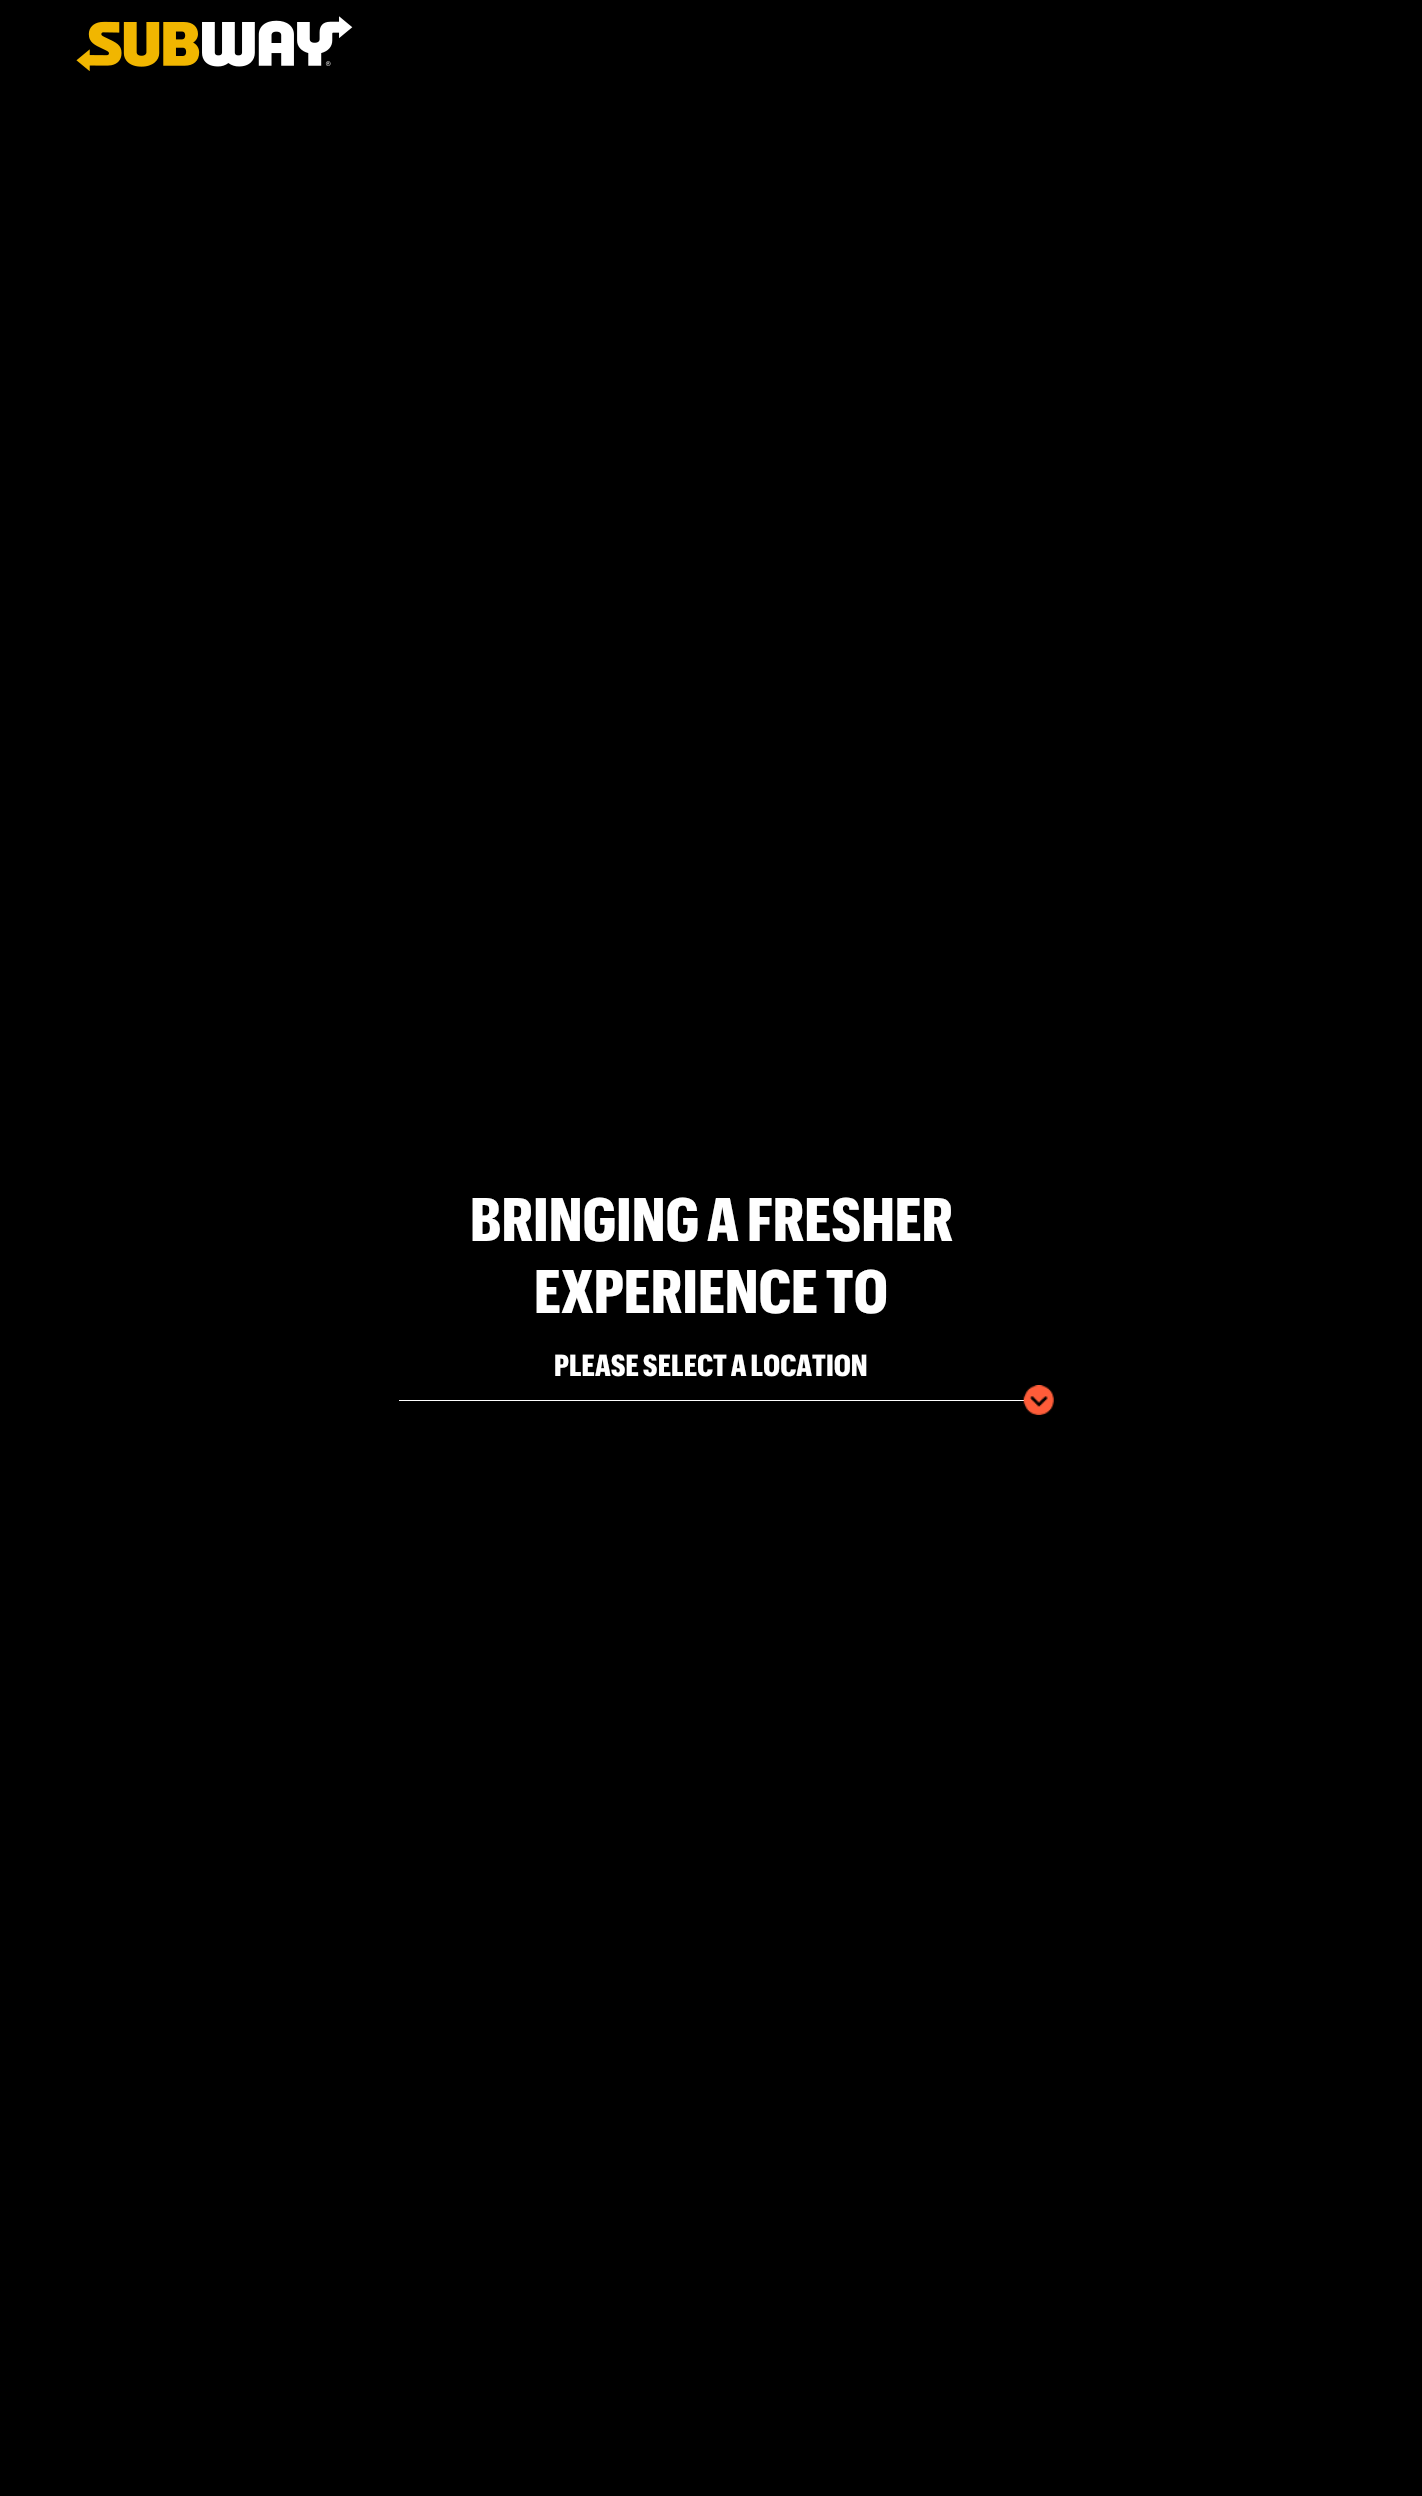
#include "include/core/SkBlurTypes.h"
#include "include/core/SkCanvas.h"
#include "include/core/SkData.h"
#include "include/core/SkFont.h"
#include "include/core/SkFontMgr.h"
#include "include/core/SkImage.h"
#include "include/core/SkMaskFilter.h"
#include "include/core/SkPaint.h"
#include "include/core/SkPathBuilder.h"
#include "include/core/SkTextBlob.h"
#include "include/effects/SkDashPathEffect.h"
#include "include/effects/SkGradientShader.h"
#include "include/utils/SkParsePath.h"

extern sk_sp<SkFontMgr> fontMgr;

void draw(SkCanvas* canvas) {
    SkPaint p;
    p.setAntiAlias(true);
    auto font = [&](const char* family, int weight, float size, bool italic = false) {
        SkFontStyle style(weight, SkFontStyle::kNormal_Width,
            italic ? SkFontStyle::kItalic_Slant : SkFontStyle::kUpright_Slant);
        SkFont result(fontMgr->matchFamilyStyle(family, style), size);
        result.setSubpixel(true);
        return result;
    };
    auto drawPhoto = [&](const char* path, float l, float t, float r, float b) {
        auto image = SkImages::DeferredFromEncodedData(SkData::MakeFromFileName(path));
        canvas->drawImageRect(image, SkRect::MakeLTRB(l, t, r, b), SkSamplingOptions());
    };
    canvas->clear(0xFF000000);
    drawPhoto("media/1.png", 76, 16, 353, 71);
    auto font1 = font("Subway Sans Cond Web", 700, 60);
    p.setColor(0xFFFFFFFF);
    canvas->drawString("BRINGING A FRESHER", 470, 1241, font1, p);
    canvas->drawString("EXPERIENCE TO", 534, 1313, font1, p);
    canvas->drawRect(SkRect::MakeLTRB(399, 1400, 1024, 1401), p);
    auto font2 = font("Subway Sans Cond Web", 700, 29.75f);
    canvas->drawString("PLEASE SELECT A LOCATION", 554, 1376, font2, p);
    drawPhoto("media/2.png", 1023, 1385, 1054, 1415);
}
